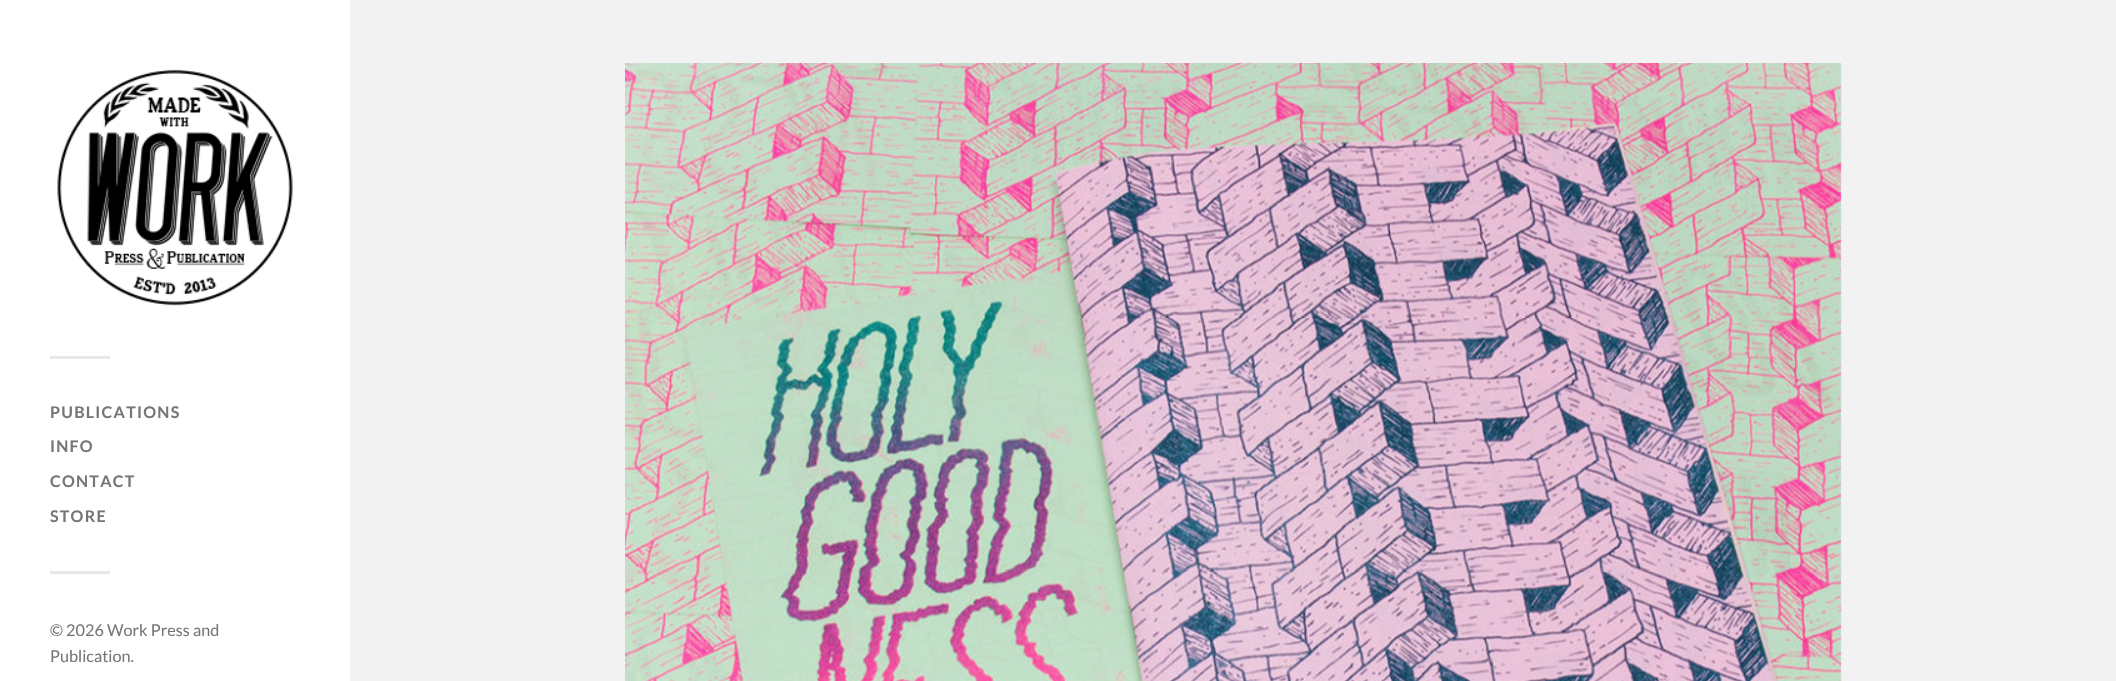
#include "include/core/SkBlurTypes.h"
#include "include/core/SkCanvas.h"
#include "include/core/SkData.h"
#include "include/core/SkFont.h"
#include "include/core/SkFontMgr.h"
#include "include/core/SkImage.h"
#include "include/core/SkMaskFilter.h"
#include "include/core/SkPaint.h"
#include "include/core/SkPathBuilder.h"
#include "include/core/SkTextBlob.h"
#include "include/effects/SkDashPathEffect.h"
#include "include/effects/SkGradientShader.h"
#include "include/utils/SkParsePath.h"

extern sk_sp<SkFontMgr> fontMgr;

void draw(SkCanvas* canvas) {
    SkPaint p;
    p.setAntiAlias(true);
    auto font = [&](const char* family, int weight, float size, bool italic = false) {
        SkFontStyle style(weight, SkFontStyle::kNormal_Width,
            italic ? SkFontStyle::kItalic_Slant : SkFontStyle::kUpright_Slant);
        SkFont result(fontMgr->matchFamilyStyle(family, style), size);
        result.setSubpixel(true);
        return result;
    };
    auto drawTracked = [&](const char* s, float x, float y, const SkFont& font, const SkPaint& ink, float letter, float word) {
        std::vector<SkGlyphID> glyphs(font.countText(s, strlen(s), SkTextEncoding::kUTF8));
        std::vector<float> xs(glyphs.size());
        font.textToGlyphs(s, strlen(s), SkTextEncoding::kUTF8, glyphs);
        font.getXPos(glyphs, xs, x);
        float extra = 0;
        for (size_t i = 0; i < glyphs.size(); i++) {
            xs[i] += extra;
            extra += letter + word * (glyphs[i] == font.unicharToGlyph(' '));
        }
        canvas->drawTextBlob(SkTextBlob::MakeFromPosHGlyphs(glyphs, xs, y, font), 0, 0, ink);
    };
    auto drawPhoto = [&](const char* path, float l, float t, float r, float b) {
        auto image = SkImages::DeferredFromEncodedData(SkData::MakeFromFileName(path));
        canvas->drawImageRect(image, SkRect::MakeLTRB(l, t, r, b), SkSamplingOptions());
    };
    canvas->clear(0xFFF2F2F2);
    p.setColor(0xFFFFFFFF);
    canvas->drawRect(SkRect::MakeLTRB(0, 0, 350, 681), p);
    drawPhoto("media/1.png", 57, 69, 293, 306);
    p.setColor(0xFFE7E7E7);
    canvas->drawRect(SkRect::MakeLTRB(50, 356, 110, 359), p);
    auto font1 = font("Lato", 700, 16);
    p.setColor(0xFF767676);
    {
        const struct { const char* s; float x, y; } items[] = {
            {"PUBLICATIONS", 50, 418},
            {"INFO", 50, 452},
            {"CONTACT", 50, 487},
            {"STORE", 50, 522},
        };
        for (auto [s, x, y] : items) {
            drawTracked(s, x, y, font1, p, 1.25f, 0);
        }
    }
    p.setColor(0xFFE7E7E7);
    canvas->drawRect(SkRect::MakeLTRB(50, 571, 110, 574), p);
    auto font2 = font("Lato", 400, 16.25f);
    p.setColor(0xFF767676);
    canvas->drawString("© 2026 Work Press and", 50, 636, font2, p);
    canvas->drawString("Publication.", 50, 662, font2, p);
    drawPhoto("media/2.png", 625, 63, 1842, 681);
    drawPhoto("media/3.png", 1840, 63, 1842, 681);
}
